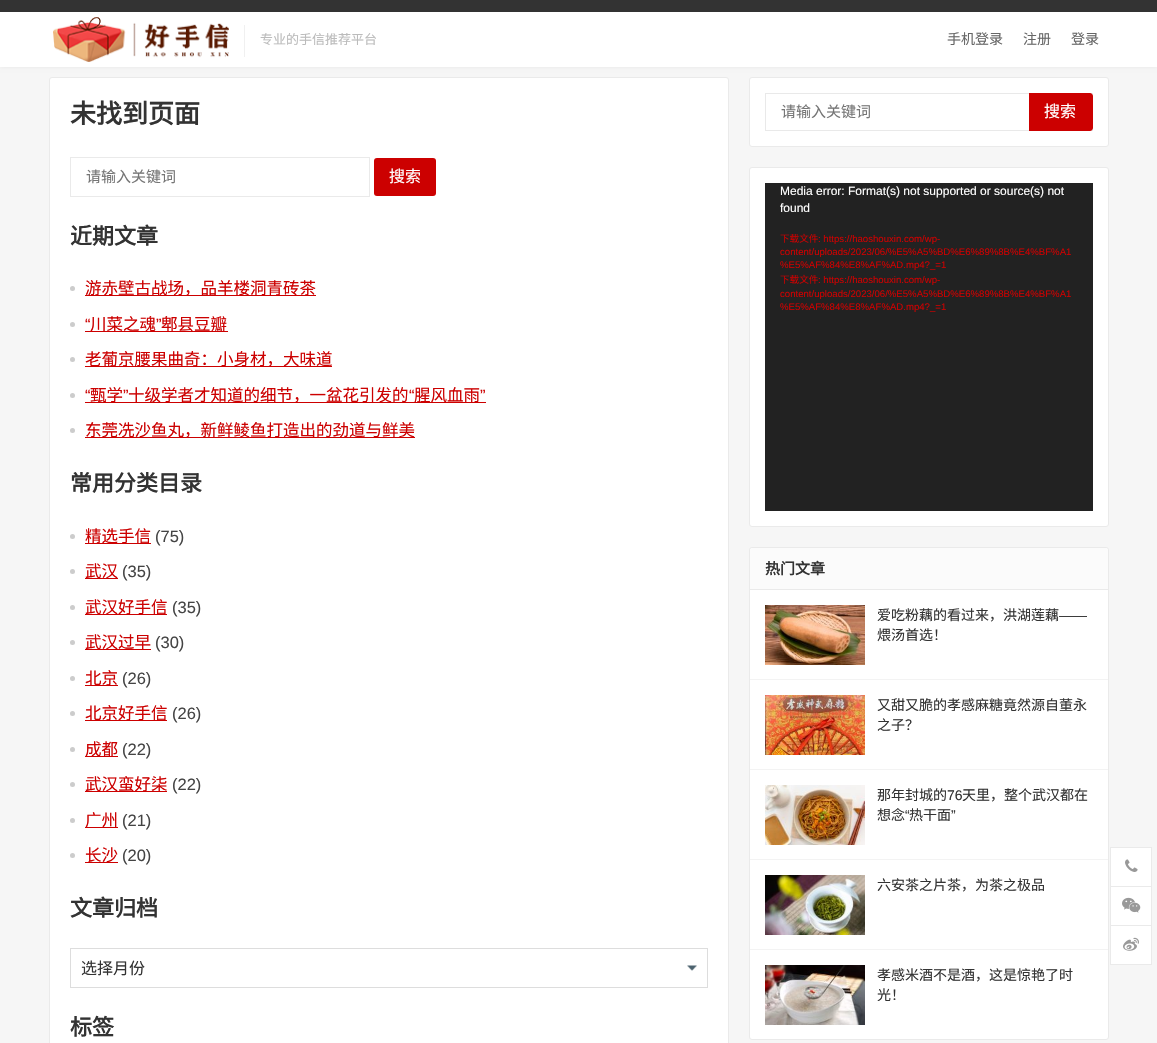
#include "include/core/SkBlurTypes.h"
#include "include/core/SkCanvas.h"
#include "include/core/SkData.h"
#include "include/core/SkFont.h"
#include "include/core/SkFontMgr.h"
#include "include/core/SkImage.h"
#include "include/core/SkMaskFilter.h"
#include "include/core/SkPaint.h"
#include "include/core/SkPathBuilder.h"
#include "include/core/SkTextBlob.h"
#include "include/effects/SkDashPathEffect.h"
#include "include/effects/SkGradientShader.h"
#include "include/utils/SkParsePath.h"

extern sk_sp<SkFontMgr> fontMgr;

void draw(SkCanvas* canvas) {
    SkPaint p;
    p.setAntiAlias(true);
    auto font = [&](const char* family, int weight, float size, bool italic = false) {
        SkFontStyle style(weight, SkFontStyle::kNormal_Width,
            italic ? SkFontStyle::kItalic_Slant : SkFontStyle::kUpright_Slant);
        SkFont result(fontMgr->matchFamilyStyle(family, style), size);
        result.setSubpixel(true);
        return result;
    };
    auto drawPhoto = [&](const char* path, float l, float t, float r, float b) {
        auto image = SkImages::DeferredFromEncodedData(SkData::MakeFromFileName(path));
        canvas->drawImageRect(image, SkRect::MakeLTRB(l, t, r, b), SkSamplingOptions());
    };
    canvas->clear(0xFFF6F6F6);
    p.setColor(0xFF333333);
    canvas->drawRect(SkRect::MakeLTRB(0, 0, 1157, 12), p);
    p.setColor(0x0F000000);
    p.setMaskFilter(SkMaskFilter::MakeBlur(kNormal_SkBlurStyle, 2));
    canvas->drawRect(SkRect::MakeLTRB(0, 12, 1157, 67), p);
    p.setMaskFilter(nullptr);
    p.setColor(0xFFFFFFFF);
    canvas->drawRect(SkRect::MakeLTRB(0, 12, 1157, 67), p);
    drawPhoto("media/1.png", 53, 17, 229, 62);
    p.setColor(0xFFF0F0F0);
    canvas->drawRect(SkRect::MakeLTRB(244, 25, 245, 57), p);
    auto font1 = font("Noto Sans CJK SC", 400, 13);
    p.setColor(0xFFBBBBBB);
    canvas->drawString("专业的手信推荐平台", 260, 44, font1, p);
    auto font2 = font("Noto Sans CJK SC", 400, 14);
    p.setColor(0xFF666666);
    {
        const struct { const char* s; float x, y; } items[] = {
            {"手机登录", 947, 44},
            {"注册", 1023, 44},
            {"登录", 1071, 44},
        };
        for (auto [s, x, y] : items) {
            canvas->drawString(s, x, y, font2, p);
        }
    }
    p.setColor(0xFFFFFFFF);
    canvas->drawRoundRect(SkRect::MakeLTRB(49.5f, 77.5f, 728.5f, 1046.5f), 2.5f, 2.5f, p);
    p.setStyle(SkPaint::kStroke_Style);
    p.setStrokeWidth(1);
    p.setColor(0xFFEAEAEA);
    canvas->drawRoundRect(SkRect::MakeLTRB(49.5f, 77.5f, 728.5f, 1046.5f), 2.5f, 2.5f, p);
    auto font3 = font("Noto Sans CJK SC", 700, 26);
    p.setStyle(SkPaint::kFill_Style);
    p.setColor(0xFF333333);
    canvas->drawString("未找到页面", 70, 123, font3, p);
    p.setStyle(SkPaint::kStroke_Style);
    p.setColor(0xFFEAEAEA);
    canvas->drawRect(SkRect::MakeLTRB(70.5f, 157.5f, 369.5f, 196.5f), p);
    auto font4 = font("Noto Sans CJK SC", 400, 15);
    p.setStyle(SkPaint::kFill_Style);
    p.setColor(0xFF757575);
    canvas->drawString("请输入关键词", 86, 182, font4, p);
    p.setColor(0xFFCC0000);
    canvas->drawRoundRect(SkRect::MakeLTRB(374, 158, 436, 196), 3, 3, p);
    auto font5 = font("Noto Sans CJK SC", 400, 16);
    p.setColor(0xFFFFFFFF);
    canvas->drawString("搜索", 389, 182, font5, p);
    auto font6 = font("Noto Sans CJK SC", 700, 22);
    p.setColor(0xFF333333);
    canvas->drawString("近期文章", 70, 244, font6, p);
    p.setColor(0xFFCCCCCC);
    canvas->drawCircle(72.5f, 288.5f, 2.5f, p);
    p.setColor(0xFFCC0000);
    canvas->drawRect(SkRect::MakeLTRB(85, 295, 316, 296), p);
    auto font7 = font("Noto Sans CJK SC", 400, 16.5f);
    canvas->drawString("游赤壁古战场，品羊楼洞青砖茶", 85, 294, font7, p);
    auto font8 = font("Liberation Sans", 400, 16.5f);
    canvas->drawString("“", 85, 330, font8, p);
    canvas->drawRect(SkRect::MakeLTRB(85, 331, 228, 332), p);
    canvas->drawString("川菜之魂", 90, 330, font7, p);
    canvas->drawString("”", 156, 330, font8, p);
    canvas->drawString("郫县豆瓣", 161, 330, font7, p);
    p.setColor(0xFFCCCCCC);
    canvas->drawCircle(72.5f, 324.5f, 2.5f, p);
    canvas->drawCircle(72.5f, 359.5f, 2.5f, p);
    p.setColor(0xFFCC0000);
    canvas->drawRect(SkRect::MakeLTRB(85, 366, 332, 367), p);
    canvas->drawString("老葡京腰果曲奇：小身材，大味道", 85, 365, font7, p);
    canvas->drawString("“", 85, 401, font8, p);
    canvas->drawRect(SkRect::MakeLTRB(85, 402, 486, 403), p);
    canvas->drawString("甄学", 90, 401, font7, p);
    canvas->drawString("”", 123, 401, font8, p);
    canvas->drawString("十级学者才知道的细节，一盆花引发的", 128, 401, font7, p);
    canvas->drawString("“", 409, 401, font8, p);
    canvas->drawString("腥风血雨", 414, 401, font7, p);
    canvas->drawString("”", 480, 401, font8, p);
    p.setColor(0xFFCCCCCC);
    canvas->drawCircle(72.5f, 395.5f, 2.5f, p);
    canvas->drawCircle(72.5f, 430.5f, 2.5f, p);
    p.setColor(0xFFCC0000);
    canvas->drawRect(SkRect::MakeLTRB(85, 437, 415, 438), p);
    canvas->drawString("东莞冼沙鱼丸，新鲜鲮鱼打造出的劲道与鲜美", 85, 436, font7, p);
    p.setColor(0xFF333333);
    canvas->drawString("常用分类目录", 70, 491, font6, p);
    p.setColor(0xFFCCCCCC);
    canvas->drawCircle(72.5f, 536.5f, 2.5f, p);
    p.setColor(0xFFCC0000);
    canvas->drawRect(SkRect::MakeLTRB(85, 543, 151, 544), p);
    canvas->drawString("精选手信", 85, 542, font7, p);
    p.setColor(0xFF444444);
    canvas->drawString("(75)", 155, 542, font8, p);
    p.setColor(0xFFCCCCCC);
    canvas->drawCircle(72.5f, 571.5f, 2.5f, p);
    p.setColor(0xFFCC0000);
    canvas->drawRect(SkRect::MakeLTRB(85, 578, 118, 579), p);
    canvas->drawString("武汉", 85, 577, font7, p);
    p.setColor(0xFF444444);
    canvas->drawString("(35)", 122, 577, font8, p);
    p.setColor(0xFFCCCCCC);
    canvas->drawCircle(72.5f, 607.5f, 2.5f, p);
    p.setColor(0xFFCC0000);
    canvas->drawRect(SkRect::MakeLTRB(85, 614, 167, 615), p);
    canvas->drawString("武汉好手信", 85, 613, font7, p);
    p.setColor(0xFF444444);
    canvas->drawString("(35)", 172, 613, font8, p);
    p.setColor(0xFFCCCCCC);
    canvas->drawCircle(72.5f, 642.5f, 2.5f, p);
    p.setColor(0xFFCC0000);
    canvas->drawRect(SkRect::MakeLTRB(85, 649, 151, 650), p);
    canvas->drawString("武汉过早", 85, 648, font7, p);
    p.setColor(0xFF444444);
    canvas->drawString("(30)", 155, 648, font8, p);
    p.setColor(0xFFCCCCCC);
    canvas->drawCircle(72.5f, 678.5f, 2.5f, p);
    p.setColor(0xFFCC0000);
    canvas->drawRect(SkRect::MakeLTRB(85, 685, 118, 686), p);
    canvas->drawString("北京", 85, 684, font7, p);
    p.setColor(0xFF444444);
    canvas->drawString("(26)", 122, 684, font8, p);
    p.setColor(0xFFCCCCCC);
    canvas->drawCircle(72.5f, 713.5f, 2.5f, p);
    p.setColor(0xFFCC0000);
    canvas->drawRect(SkRect::MakeLTRB(85, 720, 167, 721), p);
    canvas->drawString("北京好手信", 85, 719, font7, p);
    p.setColor(0xFF444444);
    canvas->drawString("(26)", 172, 719, font8, p);
    p.setColor(0xFFCCCCCC);
    canvas->drawCircle(72.5f, 749.5f, 2.5f, p);
    p.setColor(0xFFCC0000);
    canvas->drawRect(SkRect::MakeLTRB(85, 756, 118, 757), p);
    canvas->drawString("成都", 85, 755, font7, p);
    p.setColor(0xFF444444);
    canvas->drawString("(22)", 122, 755, font8, p);
    p.setColor(0xFFCCCCCC);
    canvas->drawCircle(72.5f, 784.5f, 2.5f, p);
    p.setColor(0xFFCC0000);
    canvas->drawRect(SkRect::MakeLTRB(85, 791, 167, 792), p);
    canvas->drawString("武汉蛮好柒", 85, 790, font7, p);
    p.setColor(0xFF444444);
    canvas->drawString("(22)", 172, 790, font8, p);
    p.setColor(0xFFCCCCCC);
    canvas->drawCircle(72.5f, 820.5f, 2.5f, p);
    p.setColor(0xFFCC0000);
    canvas->drawRect(SkRect::MakeLTRB(85, 827, 118, 828), p);
    canvas->drawString("广州", 85, 826, font7, p);
    p.setColor(0xFF444444);
    canvas->drawString("(21)", 122, 826, font8, p);
    p.setColor(0xFFCCCCCC);
    canvas->drawCircle(72.5f, 855.5f, 2.5f, p);
    p.setColor(0xFFCC0000);
    canvas->drawRect(SkRect::MakeLTRB(85, 862, 118, 863), p);
    canvas->drawString("长沙", 85, 861, font7, p);
    p.setColor(0xFF444444);
    canvas->drawString("(20)", 122, 861, font8, p);
    p.setColor(0xFF333333);
    canvas->drawString("文章归档", 70, 916, font6, p);
    drawPhoto("media/2.png", 687, 965, 697, 971);
    p.setStyle(SkPaint::kStroke_Style);
    p.setColor(0xFFDDDDDD);
    canvas->drawRect(SkRect::MakeLTRB(70.5f, 948.5f, 707.5f, 987.5f), p);
    p.setStyle(SkPaint::kFill_Style);
    p.setColor(0xFF333333);
    canvas->drawString("选择月份", 81, 974, font5, p);
    canvas->drawString("标签", 70, 1035, font6, p);
    p.setColor(0xFFFFFFFF);
    canvas->drawRoundRect(SkRect::MakeLTRB(749.5f, 77.5f, 1108.5f, 146.5f), 2.5f, 2.5f, p);
    p.setStyle(SkPaint::kStroke_Style);
    p.setColor(0xFFEAEAEA);
    canvas->drawRoundRect(SkRect::MakeLTRB(749.5f, 77.5f, 1108.5f, 146.5f), 2.5f, 2.5f, p);
    p.setColor(0xFFE9E9E9);
    canvas->drawRect(SkRect::MakeLTRB(765.5f, 93.5f, 1092.5f, 130.5f), p);
    p.setStyle(SkPaint::kFill_Style);
    p.setColor(0xFF757575);
    canvas->drawString("请输入关键词", 781, 117, font4, p);
    p.setColor(0xFFCC0000);
    canvas->drawPath(SkPathBuilder().moveTo(1029, 93).lineTo(1090, 93).cubicTo(1091.5f, 93, 1093, 94.5f, 1093, 96).lineTo(1093, 128).cubicTo(1093, 129.5f, 1091.5f, 131, 1090, 131).lineTo(1029, 131).close().detach(), p);
    p.setColor(0xFFFFFFFF);
    canvas->drawString("搜索", 1044, 117, font5, p);
    canvas->drawRoundRect(SkRect::MakeLTRB(749.5f, 167.5f, 1108.5f, 526.5f), 2.5f, 2.5f, p);
    p.setStyle(SkPaint::kStroke_Style);
    p.setColor(0xFFEAEAEA);
    canvas->drawRoundRect(SkRect::MakeLTRB(749.5f, 167.5f, 1108.5f, 526.5f), 2.5f, 2.5f, p);
    p.setStyle(SkPaint::kFill_Style);
    p.setColor(0xFF222222);
    canvas->drawRect(SkRect::MakeLTRB(765, 183, 1093, 511), p);
    auto font9 = font("Liberation Sans", 400, 12);
    p.setColor(0xFFFFFFFF);
    canvas->drawString("Media error: Format(s) not supported or source(s) not", 780, 195, font9, p);
    canvas->drawString("found", 780, 212, font9, p);
    auto font10 = font("Noto Sans CJK SC", 400, 9.6f);
    p.setColor(0xFFCC0000);
    canvas->drawString("下载文件", 780, 242, font10, p);
    auto font11 = font("Liberation Sans", 400, 9.6f);
    {
        const struct { const char* s; float x, y; } items[] = {
            {": https://haoshouxin.com/wp-", 818, 242},
            {"content/uploads/2023/06/%E5%A5%BD%E6%89%8B%E4%BF%A1", 780, 255},
            {"%E5%AF%84%E8%AF%AD.mp4?_=1", 780, 268},
        };
        for (auto [s, x, y] : items) {
            canvas->drawString(s, x, y, font11, p);
        }
    }
    canvas->drawString("下载文件", 780, 283, font10, p);
    {
        const struct { const char* s; float x, y; } items[] = {
            {": https://haoshouxin.com/wp-", 818, 283},
            {"content/uploads/2023/06/%E5%A5%BD%E6%89%8B%E4%BF%A1", 780, 297},
            {"%E5%AF%84%E8%AF%AD.mp4?_=1", 780, 310},
        };
        for (auto [s, x, y] : items) {
            canvas->drawString(s, x, y, font11, p);
        }
    }
    p.setColor(0xFFFFFFFF);
    canvas->drawRoundRect(SkRect::MakeLTRB(749.5f, 547.5f, 1108.5f, 1039.5f), 2.5f, 2.5f, p);
    p.setStyle(SkPaint::kStroke_Style);
    p.setColor(0xFFEAEAEA);
    canvas->drawRoundRect(SkRect::MakeLTRB(749.5f, 547.5f, 1108.5f, 1039.5f), 2.5f, 2.5f, p);
    p.setStyle(SkPaint::kFill_Style);
    p.setColor(0xFFFBFBFB);
    canvas->drawPath(SkPathBuilder().moveTo(753, 548).lineTo(1105, 548).cubicTo(1106.5f, 548, 1108, 549.5f, 1108, 551).lineTo(1108, 590).lineTo(750, 590).lineTo(750, 551).cubicTo(750, 549.5f, 751.5f, 548, 753, 548).close().detach(), p);
    p.setColor(0xFFEAEAEA);
    canvas->drawRect(SkRect::MakeLTRB(750, 589, 1108, 590), p);
    auto font12 = font("Noto Sans CJK SC", 700, 15);
    p.setColor(0xFF333333);
    canvas->drawString("热门文章", 765, 574, font12, p);
    p.setColor(0xFFF3F3F3);
    canvas->drawRect(SkRect::MakeLTRB(750, 679, 1108, 680), p);
    drawPhoto("media/3.png", 765, 605, 865, 665);
    p.setColor(0xFF333333);
    canvas->drawString("爱吃粉藕的看过来，洪湖莲藕", 877, 620, font2, p);
    auto font13 = font("Liberation Sans", 400, 14);
    canvas->drawString("——", 1059, 620, font13, p);
    canvas->drawString("煨汤首选！", 877, 640, font2, p);
    p.setColor(0xFFF3F3F3);
    canvas->drawRect(SkRect::MakeLTRB(750, 769, 1108, 770), p);
    drawPhoto("media/4.png", 765, 695, 865, 755);
    p.setColor(0xFF333333);
    canvas->drawString("又甜又脆的孝感麻糖竟然源自董永", 877, 710, font2, p);
    canvas->drawString("之子？", 877, 730, font2, p);
    p.setColor(0xFFF3F3F3);
    canvas->drawRect(SkRect::MakeLTRB(750, 859, 1108, 860), p);
    drawPhoto("media/5.png", 765, 785, 865, 845);
    p.setColor(0xFF333333);
    canvas->drawString("那年封城的", 877, 800, font2, p);
    canvas->drawString("76", 947, 800, font13, p);
    canvas->drawString("天里，整个武汉都在", 962, 800, font2, p);
    canvas->drawString("想念", 877, 820, font2, p);
    canvas->drawString("“", 905, 820, font13, p);
    canvas->drawString("热干面", 909, 820, font2, p);
    canvas->drawString("”", 951, 820, font13, p);
    p.setColor(0xFFF3F3F3);
    canvas->drawRect(SkRect::MakeLTRB(750, 949, 1108, 950), p);
    drawPhoto("media/6.png", 765, 875, 865, 935);
    p.setColor(0xFF333333);
    canvas->drawString("六安茶之片茶，为茶之极品", 877, 890, font2, p);
    drawPhoto("media/7.png", 765, 965, 865, 1025);
    canvas->drawString("孝感米酒不是酒，这是惊艳了时", 877, 980, font2, p);
    canvas->drawString("光！", 877, 1000, font2, p);
    p.setStyle(SkPaint::kStroke_Style);
    p.setColor(0xFFEAEAEA);
    canvas->drawRect(SkRect::MakeLTRB(1110.5f, 847.5f, 1151.5f, 886.5f), p);
    p.setStyle(SkPaint::kFill_Style);
    p.setColor(0xFFFFFFFF);
    canvas->drawRect(SkRect::MakeLTRB(1111, 848, 1151, 886), p);
    drawPhoto("media/8.png", 1125, 859, 1138, 872);
    p.setStyle(SkPaint::kStroke_Style);
    p.setColor(0xFFEAEAEA);
    canvas->drawRect(SkRect::MakeLTRB(1110.5f, 925.5f, 1151.5f, 964.5f), p);
    canvas->drawRect(SkRect::MakeLTRB(1110.5f, 886.5f, 1151.5f, 925.5f), p);
    p.setStyle(SkPaint::kFill_Style);
    p.setColor(0xFFFFFFFF);
    canvas->drawRect(SkRect::MakeLTRB(1111, 887, 1151, 925), p);
    drawPhoto("media/9.png", 1122, 897, 1141, 913);
    canvas->drawRect(SkRect::MakeLTRB(1111, 926, 1151, 964), p);
    drawPhoto("media/10.png", 1123, 937, 1139, 951);
}
